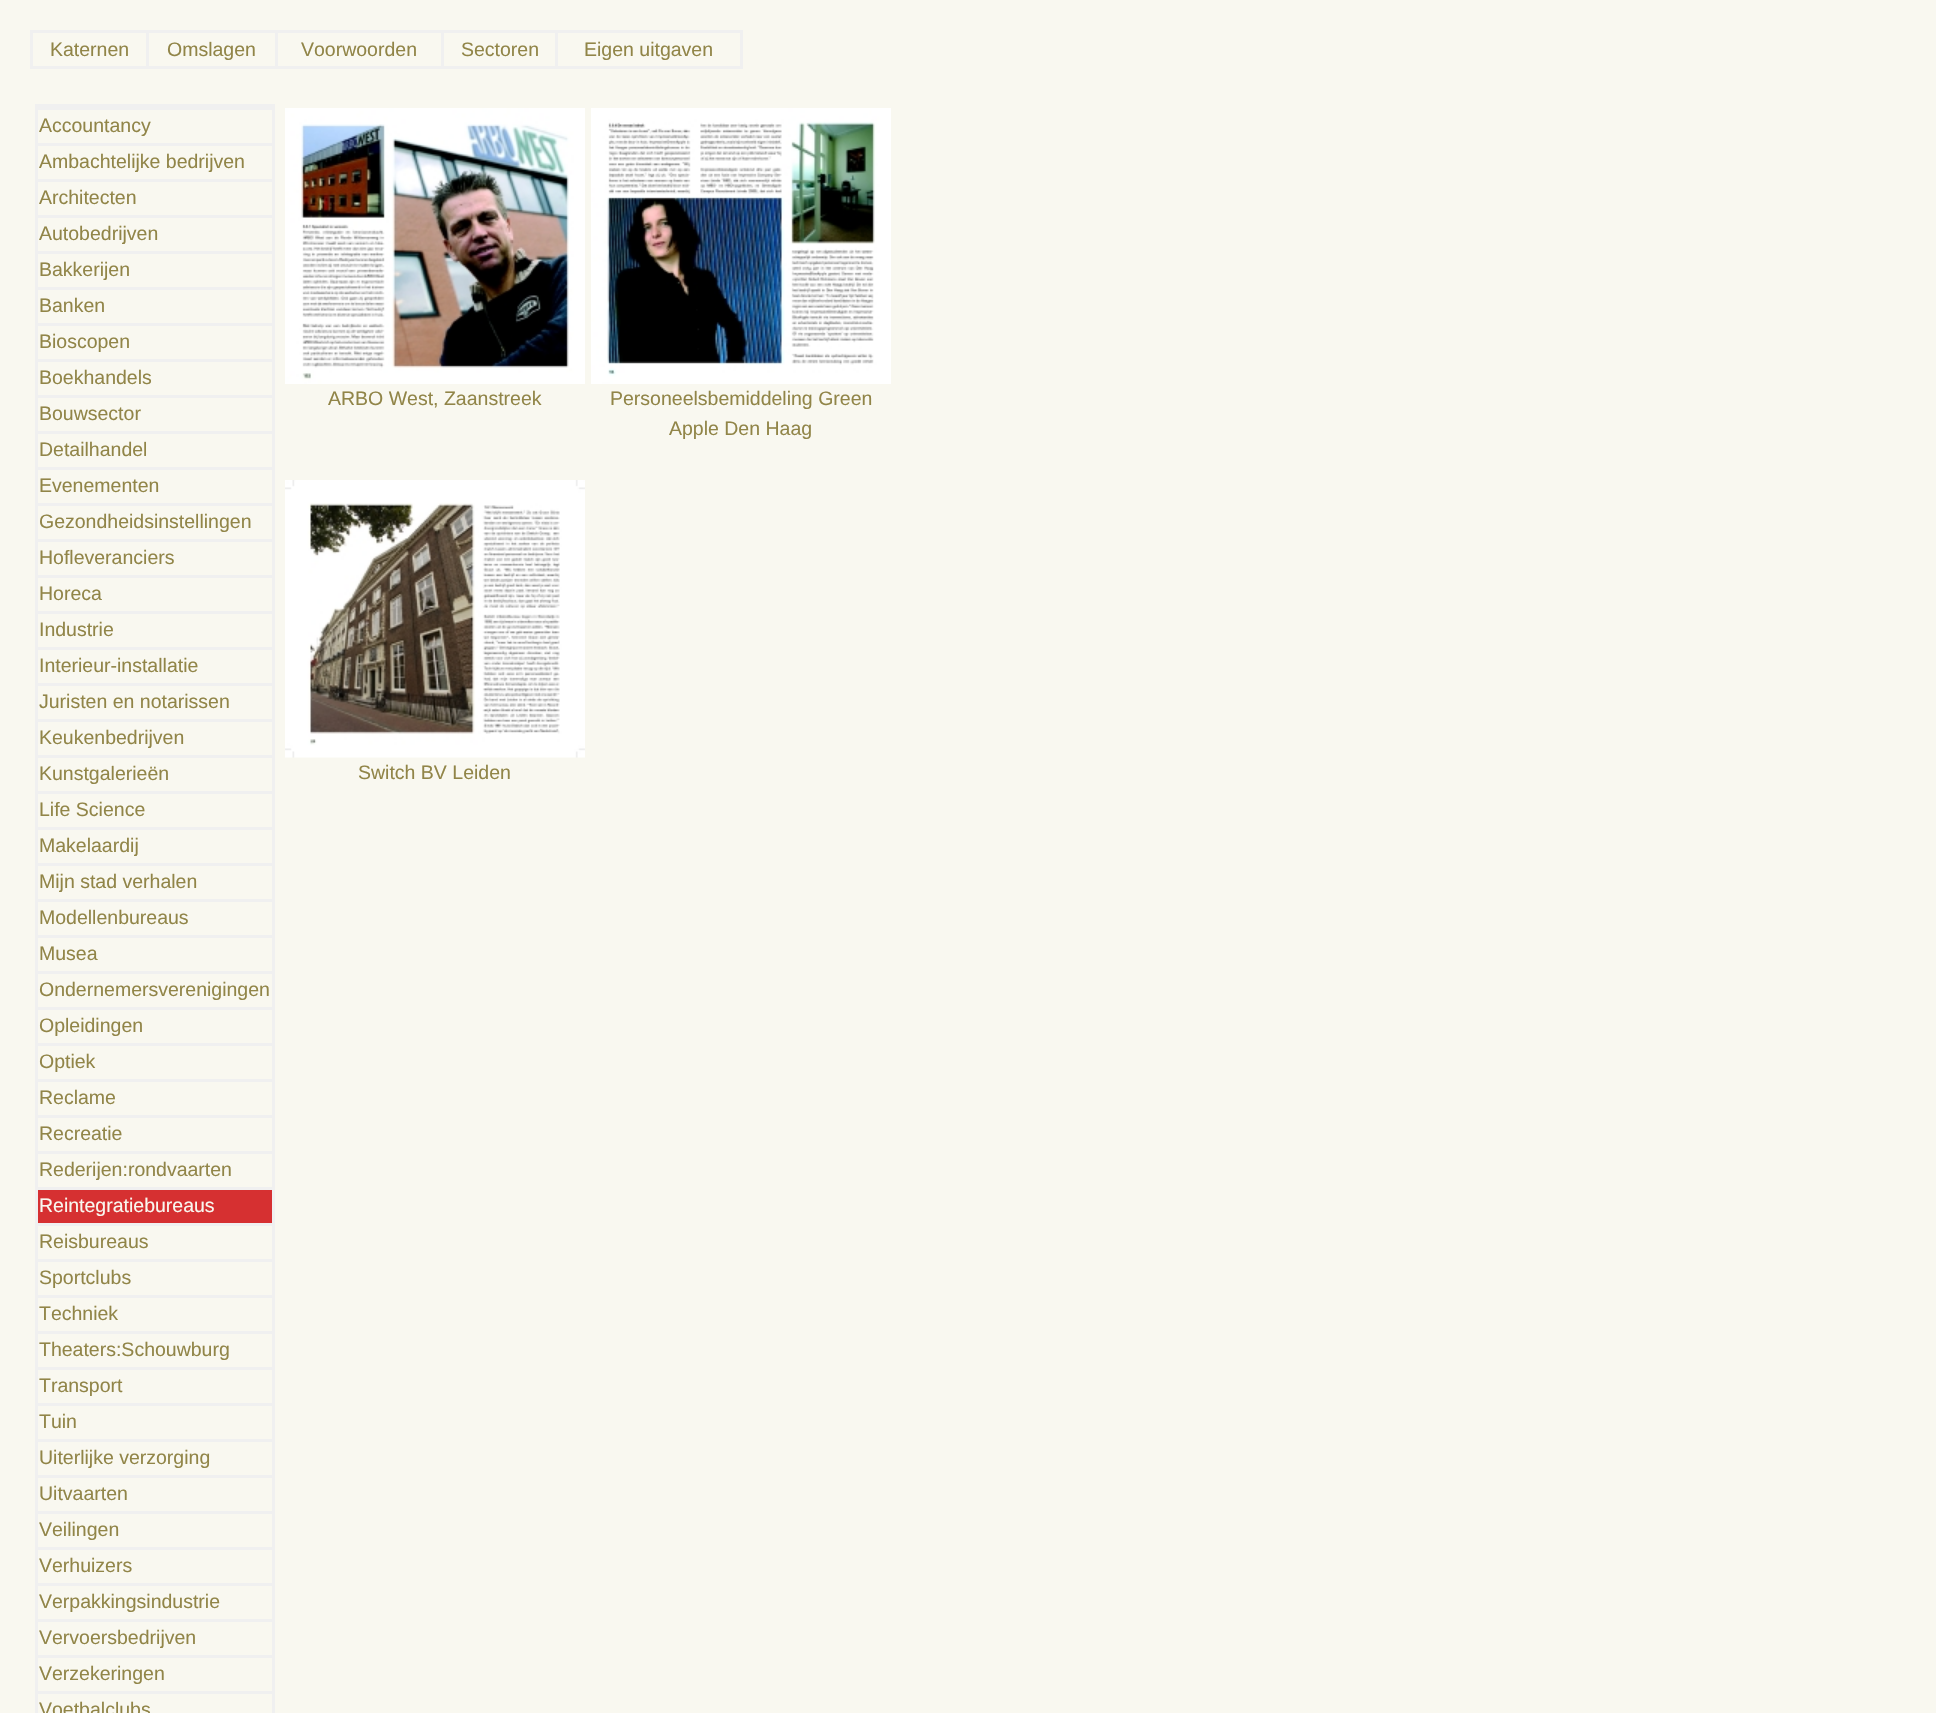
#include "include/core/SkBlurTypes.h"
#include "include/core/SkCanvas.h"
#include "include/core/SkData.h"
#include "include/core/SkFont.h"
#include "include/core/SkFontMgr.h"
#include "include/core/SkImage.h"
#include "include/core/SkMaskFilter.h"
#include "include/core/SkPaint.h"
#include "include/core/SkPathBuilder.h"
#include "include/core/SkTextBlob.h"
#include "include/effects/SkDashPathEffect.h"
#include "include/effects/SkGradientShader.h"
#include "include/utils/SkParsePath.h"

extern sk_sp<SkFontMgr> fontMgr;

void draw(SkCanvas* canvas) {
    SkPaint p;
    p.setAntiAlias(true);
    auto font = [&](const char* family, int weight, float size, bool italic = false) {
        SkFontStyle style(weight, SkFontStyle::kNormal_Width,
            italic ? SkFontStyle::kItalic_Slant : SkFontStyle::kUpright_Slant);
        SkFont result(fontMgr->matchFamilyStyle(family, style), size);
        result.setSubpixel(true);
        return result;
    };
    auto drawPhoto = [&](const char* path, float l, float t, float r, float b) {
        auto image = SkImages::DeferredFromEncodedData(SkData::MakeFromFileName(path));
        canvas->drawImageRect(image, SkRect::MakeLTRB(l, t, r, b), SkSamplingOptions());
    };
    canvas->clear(0xFFF9F8F0);
    p.setColor(0xFFF0F0F0);
    canvas->drawRect(SkRect::MakeLTRB(30, 30, 743, 69), p);
    p.setColor(0xFFF9F8F0);
    canvas->drawRect(SkRect::MakeLTRB(33, 33, 146, 66), p);
    auto font1 = font("Liberation Sans", 400, 19.5f);
    p.setColor(0xFF918548);
    canvas->drawString("Katernen", 50, 56, font1, p);
    p.setColor(0xFFF9F8F0);
    canvas->drawRect(SkRect::MakeLTRB(149, 33, 275, 66), p);
    p.setColor(0xFF918548);
    canvas->drawString("Omslagen", 167, 56, font1, p);
    p.setColor(0xFFF9F8F0);
    canvas->drawRect(SkRect::MakeLTRB(278, 33, 441, 66), p);
    p.setColor(0xFF918548);
    canvas->drawString("Voorwoorden", 301, 56, font1, p);
    p.setColor(0xFFF9F8F0);
    canvas->drawRect(SkRect::MakeLTRB(444, 33, 555, 66), p);
    p.setColor(0xFF918548);
    canvas->drawString("Sectoren", 461, 56, font1, p);
    p.setColor(0xFFF9F8F0);
    canvas->drawRect(SkRect::MakeLTRB(558, 33, 740, 66), p);
    p.setColor(0xFF918548);
    canvas->drawString("Eigen uitgaven", 584, 56, font1, p);
    p.setColor(0xFFF0F0F0);
    canvas->drawRect(SkRect::MakeLTRB(35, 104, 275, 1713), p);
    p.setColor(0xFFF9F8F0);
    canvas->drawRect(SkRect::MakeLTRB(38, 110, 272, 143), p);
    p.setColor(0xFF918548);
    canvas->drawString("Accountancy", 39, 132, font1, p);
    p.setColor(0xFFF9F8F0);
    canvas->drawRect(SkRect::MakeLTRB(38, 146, 272, 179), p);
    p.setColor(0xFF918548);
    canvas->drawString("Ambachtelijke bedrijven", 39, 168, font1, p);
    p.setColor(0xFFF9F8F0);
    canvas->drawRect(SkRect::MakeLTRB(38, 182, 272, 215), p);
    p.setColor(0xFF918548);
    canvas->drawString("Architecten", 39, 204, font1, p);
    p.setColor(0xFFF9F8F0);
    canvas->drawRect(SkRect::MakeLTRB(38, 218, 272, 251), p);
    p.setColor(0xFF918548);
    canvas->drawString("Autobedrijven", 39, 240, font1, p);
    p.setColor(0xFFF9F8F0);
    canvas->drawRect(SkRect::MakeLTRB(38, 254, 272, 287), p);
    p.setColor(0xFF918548);
    canvas->drawString("Bakkerijen", 39, 276, font1, p);
    p.setColor(0xFFF9F8F0);
    canvas->drawRect(SkRect::MakeLTRB(38, 290, 272, 323), p);
    p.setColor(0xFF918548);
    canvas->drawString("Banken", 39, 312, font1, p);
    p.setColor(0xFFF9F8F0);
    canvas->drawRect(SkRect::MakeLTRB(38, 326, 272, 359), p);
    p.setColor(0xFF918548);
    canvas->drawString("Bioscopen", 39, 348, font1, p);
    p.setColor(0xFFF9F8F0);
    canvas->drawRect(SkRect::MakeLTRB(38, 362, 272, 395), p);
    p.setColor(0xFF918548);
    canvas->drawString("Boekhandels", 39, 384, font1, p);
    p.setColor(0xFFF9F8F0);
    canvas->drawRect(SkRect::MakeLTRB(38, 398, 272, 431), p);
    p.setColor(0xFF918548);
    canvas->drawString("Bouwsector", 39, 420, font1, p);
    p.setColor(0xFFF9F8F0);
    canvas->drawRect(SkRect::MakeLTRB(38, 434, 272, 467), p);
    p.setColor(0xFF918548);
    canvas->drawString("Detailhandel", 39, 456, font1, p);
    p.setColor(0xFFF9F8F0);
    canvas->drawRect(SkRect::MakeLTRB(38, 470, 272, 503), p);
    p.setColor(0xFF918548);
    canvas->drawString("Evenementen", 39, 492, font1, p);
    p.setColor(0xFFF9F8F0);
    canvas->drawRect(SkRect::MakeLTRB(38, 506, 272, 539), p);
    p.setColor(0xFF918548);
    canvas->drawString("Gezondheidsinstellingen", 39, 528, font1, p);
    p.setColor(0xFFF9F8F0);
    canvas->drawRect(SkRect::MakeLTRB(38, 542, 272, 575), p);
    p.setColor(0xFF918548);
    canvas->drawString("Hofleveranciers", 39, 564, font1, p);
    p.setColor(0xFFF9F8F0);
    canvas->drawRect(SkRect::MakeLTRB(38, 578, 272, 611), p);
    p.setColor(0xFF918548);
    canvas->drawString("Horeca", 39, 600, font1, p);
    p.setColor(0xFFF9F8F0);
    canvas->drawRect(SkRect::MakeLTRB(38, 614, 272, 647), p);
    p.setColor(0xFF918548);
    canvas->drawString("Industrie", 39, 636, font1, p);
    p.setColor(0xFFF9F8F0);
    canvas->drawRect(SkRect::MakeLTRB(38, 650, 272, 683), p);
    p.setColor(0xFF918548);
    canvas->drawString("Interieur-installatie", 39, 672, font1, p);
    p.setColor(0xFFF9F8F0);
    canvas->drawRect(SkRect::MakeLTRB(38, 686, 272, 719), p);
    p.setColor(0xFF918548);
    canvas->drawString("Juristen en notarissen", 39, 708, font1, p);
    p.setColor(0xFFF9F8F0);
    canvas->drawRect(SkRect::MakeLTRB(38, 722, 272, 755), p);
    p.setColor(0xFF918548);
    canvas->drawString("Keukenbedrijven", 39, 744, font1, p);
    p.setColor(0xFFF9F8F0);
    canvas->drawRect(SkRect::MakeLTRB(38, 758, 272, 791), p);
    p.setColor(0xFF918548);
    canvas->drawString("Kunstgalerieën", 39, 780, font1, p);
    p.setColor(0xFFF9F8F0);
    canvas->drawRect(SkRect::MakeLTRB(38, 794, 272, 827), p);
    p.setColor(0xFF918548);
    canvas->drawString("Life Science", 39, 816, font1, p);
    p.setColor(0xFFF9F8F0);
    canvas->drawRect(SkRect::MakeLTRB(38, 830, 272, 863), p);
    p.setColor(0xFF918548);
    canvas->drawString("Makelaardij", 39, 852, font1, p);
    p.setColor(0xFFF9F8F0);
    canvas->drawRect(SkRect::MakeLTRB(38, 866, 272, 899), p);
    p.setColor(0xFF918548);
    canvas->drawString("Mijn stad verhalen", 39, 888, font1, p);
    p.setColor(0xFFF9F8F0);
    canvas->drawRect(SkRect::MakeLTRB(38, 902, 272, 935), p);
    p.setColor(0xFF918548);
    canvas->drawString("Modellenbureaus", 39, 924, font1, p);
    p.setColor(0xFFF9F8F0);
    canvas->drawRect(SkRect::MakeLTRB(38, 938, 272, 971), p);
    p.setColor(0xFF918548);
    canvas->drawString("Musea", 39, 960, font1, p);
    p.setColor(0xFFF9F8F0);
    canvas->drawRect(SkRect::MakeLTRB(38, 974, 272, 1007), p);
    p.setColor(0xFF918548);
    canvas->drawString("Ondernemersverenigingen", 39, 996, font1, p);
    p.setColor(0xFFF9F8F0);
    canvas->drawRect(SkRect::MakeLTRB(38, 1010, 272, 1043), p);
    p.setColor(0xFF918548);
    canvas->drawString("Opleidingen", 39, 1032, font1, p);
    p.setColor(0xFFF9F8F0);
    canvas->drawRect(SkRect::MakeLTRB(38, 1046, 272, 1079), p);
    p.setColor(0xFF918548);
    canvas->drawString("Optiek", 39, 1068, font1, p);
    p.setColor(0xFFF9F8F0);
    canvas->drawRect(SkRect::MakeLTRB(38, 1082, 272, 1115), p);
    p.setColor(0xFF918548);
    canvas->drawString("Reclame", 39, 1104, font1, p);
    p.setColor(0xFFF9F8F0);
    canvas->drawRect(SkRect::MakeLTRB(38, 1118, 272, 1151), p);
    p.setColor(0xFF918548);
    canvas->drawString("Recreatie", 39, 1140, font1, p);
    p.setColor(0xFFF9F8F0);
    canvas->drawRect(SkRect::MakeLTRB(38, 1154, 272, 1187), p);
    p.setColor(0xFF918548);
    canvas->drawString("Rederijen:rondvaarten", 39, 1176, font1, p);
    p.setColor(0xFFD63031);
    canvas->drawRect(SkRect::MakeLTRB(38, 1190, 272, 1223), p);
    p.setColor(0xFFF9F8F0);
    canvas->drawString("Reintegratiebureaus", 39, 1212, font1, p);
    canvas->drawRect(SkRect::MakeLTRB(38, 1226, 272, 1259), p);
    p.setColor(0xFF918548);
    canvas->drawString("Reisbureaus", 39, 1248, font1, p);
    p.setColor(0xFFF9F8F0);
    canvas->drawRect(SkRect::MakeLTRB(38, 1262, 272, 1295), p);
    p.setColor(0xFF918548);
    canvas->drawString("Sportclubs", 39, 1284, font1, p);
    p.setColor(0xFFF9F8F0);
    canvas->drawRect(SkRect::MakeLTRB(38, 1298, 272, 1331), p);
    p.setColor(0xFF918548);
    canvas->drawString("Techniek", 39, 1320, font1, p);
    p.setColor(0xFFF9F8F0);
    canvas->drawRect(SkRect::MakeLTRB(38, 1334, 272, 1367), p);
    p.setColor(0xFF918548);
    canvas->drawString("Theaters:Schouwburg", 39, 1356, font1, p);
    p.setColor(0xFFF9F8F0);
    canvas->drawRect(SkRect::MakeLTRB(38, 1370, 272, 1403), p);
    p.setColor(0xFF918548);
    canvas->drawString("Transport", 39, 1392, font1, p);
    p.setColor(0xFFF9F8F0);
    canvas->drawRect(SkRect::MakeLTRB(38, 1406, 272, 1439), p);
    p.setColor(0xFF918548);
    canvas->drawString("Tuin", 39, 1428, font1, p);
    p.setColor(0xFFF9F8F0);
    canvas->drawRect(SkRect::MakeLTRB(38, 1442, 272, 1475), p);
    p.setColor(0xFF918548);
    canvas->drawString("Uiterlijke verzorging", 39, 1464, font1, p);
    p.setColor(0xFFF9F8F0);
    canvas->drawRect(SkRect::MakeLTRB(38, 1478, 272, 1511), p);
    p.setColor(0xFF918548);
    canvas->drawString("Uitvaarten", 39, 1500, font1, p);
    p.setColor(0xFFF9F8F0);
    canvas->drawRect(SkRect::MakeLTRB(38, 1514, 272, 1547), p);
    p.setColor(0xFF918548);
    canvas->drawString("Veilingen", 39, 1536, font1, p);
    p.setColor(0xFFF9F8F0);
    canvas->drawRect(SkRect::MakeLTRB(38, 1550, 272, 1583), p);
    p.setColor(0xFF918548);
    canvas->drawString("Verhuizers", 39, 1572, font1, p);
    p.setColor(0xFFF9F8F0);
    canvas->drawRect(SkRect::MakeLTRB(38, 1586, 272, 1619), p);
    p.setColor(0xFF918548);
    canvas->drawString("Verpakkingsindustrie", 39, 1608, font1, p);
    p.setColor(0xFFF9F8F0);
    canvas->drawRect(SkRect::MakeLTRB(38, 1622, 272, 1655), p);
    p.setColor(0xFF918548);
    canvas->drawString("Vervoersbedrijven", 39, 1644, font1, p);
    p.setColor(0xFFF9F8F0);
    canvas->drawRect(SkRect::MakeLTRB(38, 1658, 272, 1691), p);
    p.setColor(0xFF918548);
    canvas->drawString("Verzekeringen", 39, 1680, font1, p);
    p.setColor(0xFFF9F8F0);
    canvas->drawRect(SkRect::MakeLTRB(38, 1694, 272, 1713), p);
    p.setColor(0xFF918548);
    canvas->drawString("Voetbalclubs", 39, 1716, font1, p);
    drawPhoto("media/1.png", 285, 108, 585, 384);
    canvas->drawString("ARBO West, Zaanstreek", 328, 405, font1, p);
    drawPhoto("media/2.png", 591, 108, 891, 384);
    canvas->drawString("Personeelsbemiddeling Green", 610, 405, font1, p);
    canvas->drawString("Apple Den Haag", 669, 435, font1, p);
    drawPhoto("media/3.png", 285, 480, 585, 758);
    canvas->drawString("Switch BV Leiden", 358, 779, font1, p);
}
